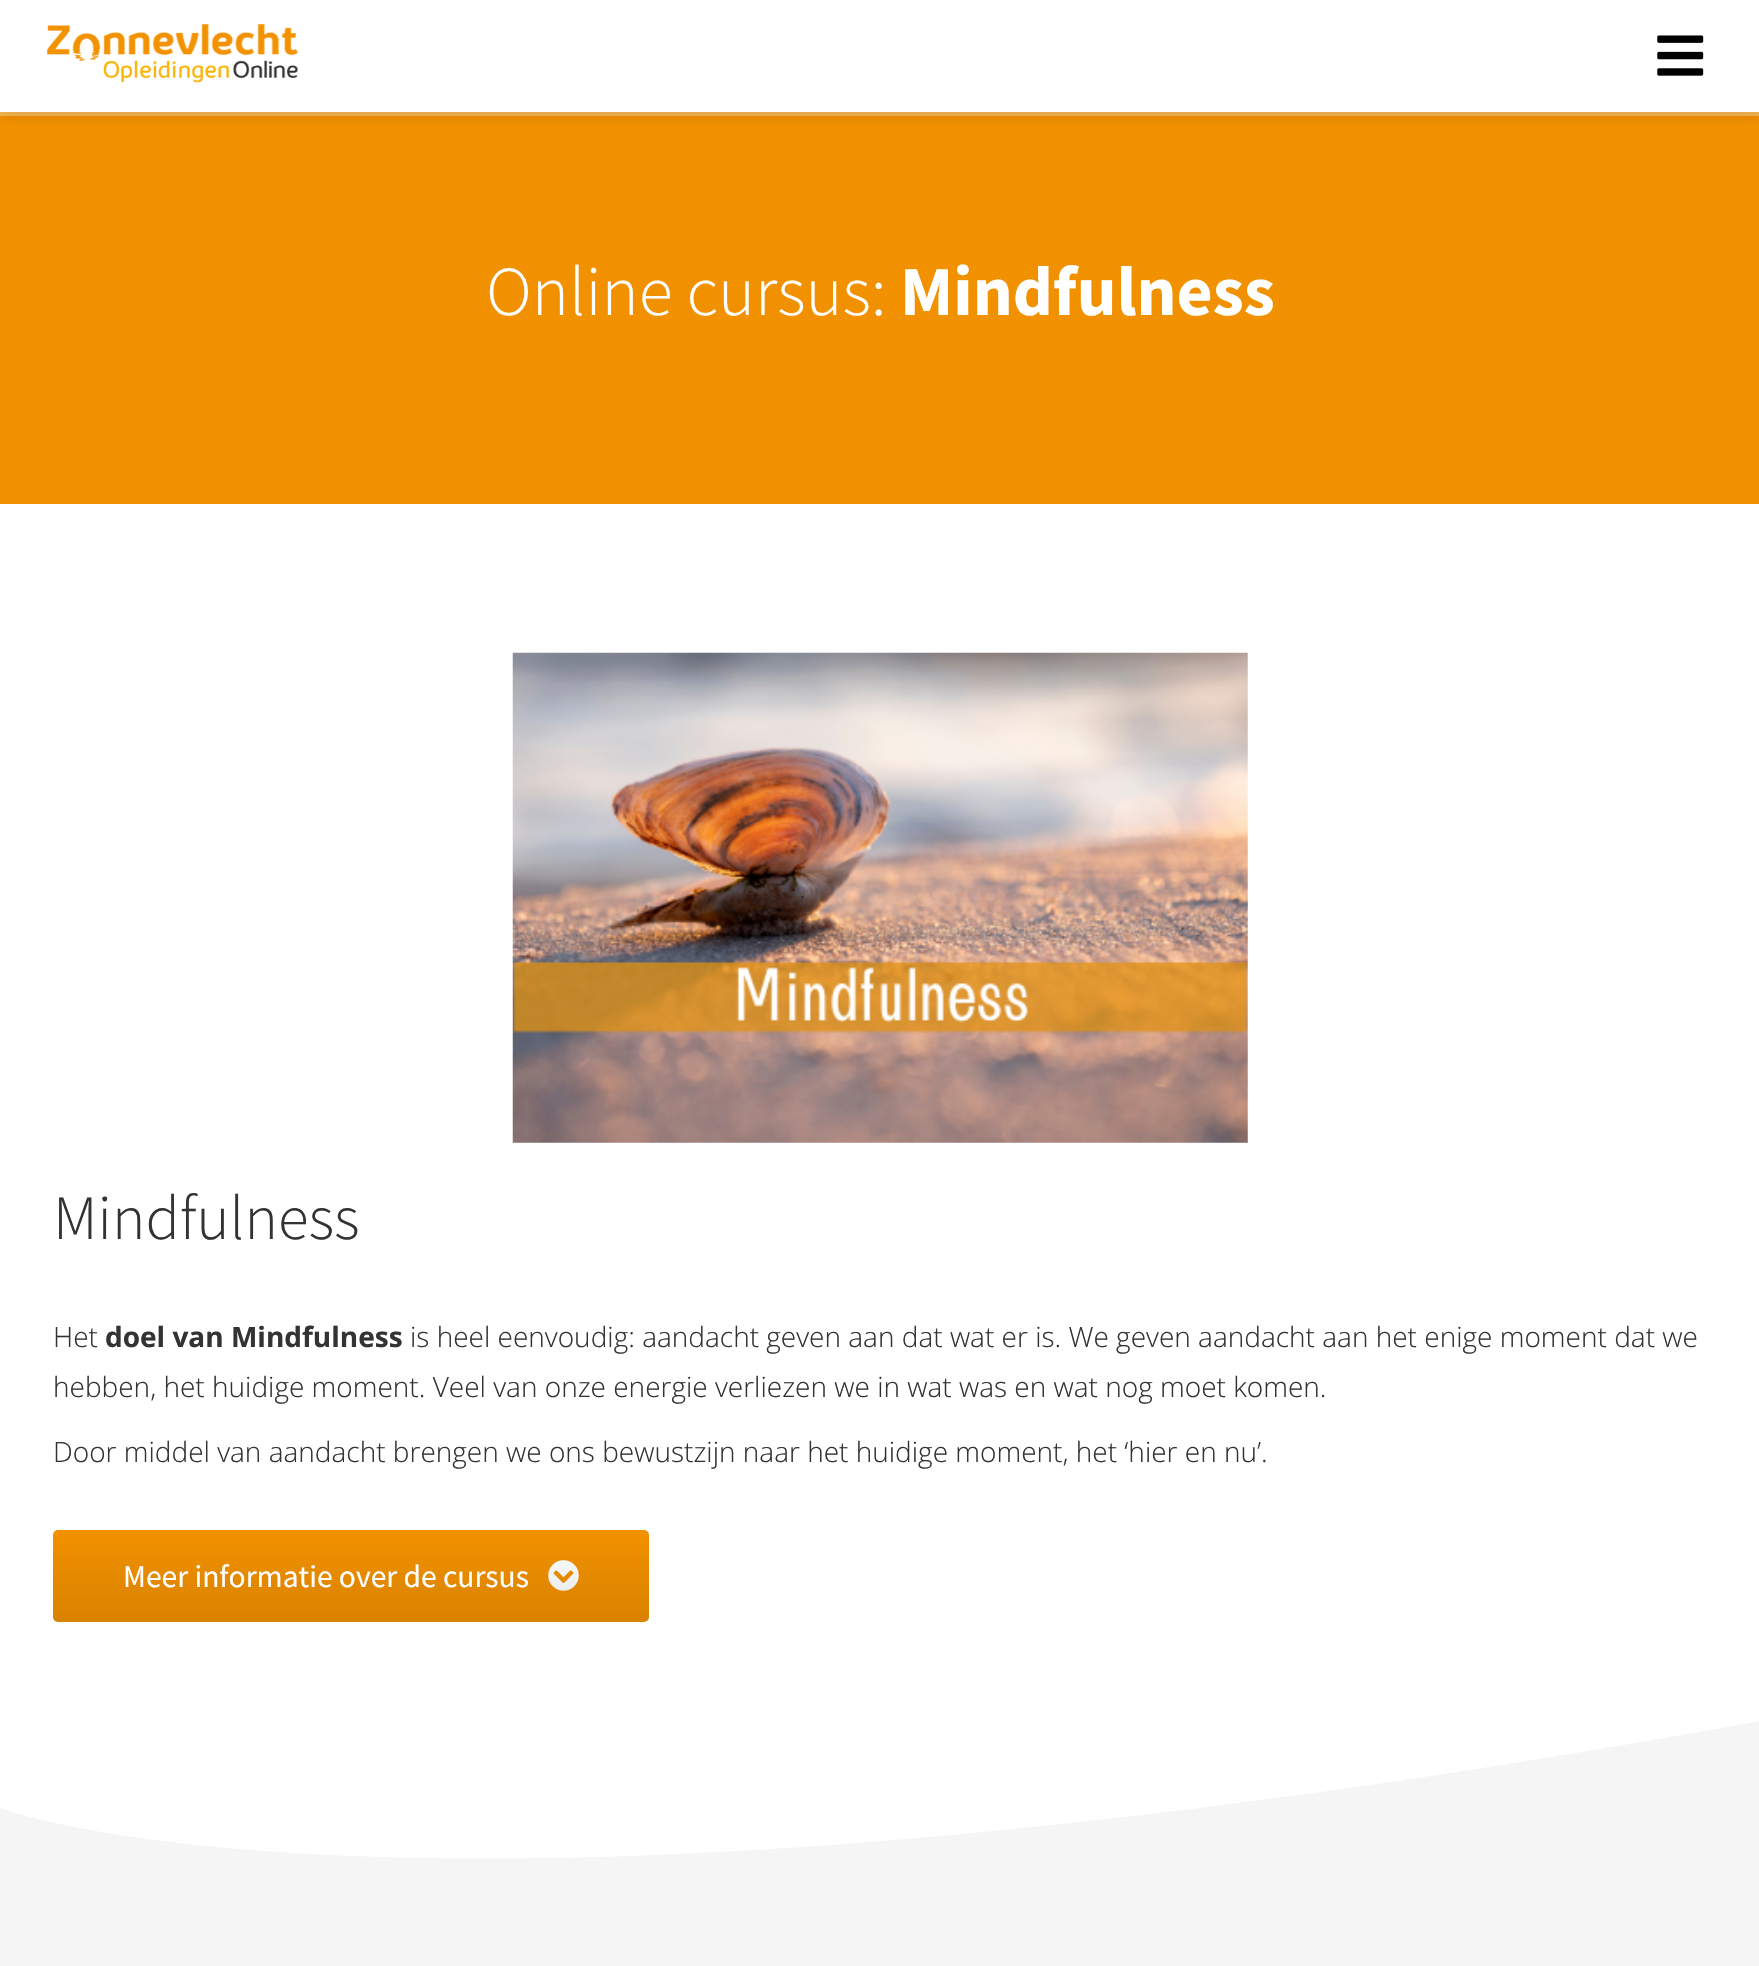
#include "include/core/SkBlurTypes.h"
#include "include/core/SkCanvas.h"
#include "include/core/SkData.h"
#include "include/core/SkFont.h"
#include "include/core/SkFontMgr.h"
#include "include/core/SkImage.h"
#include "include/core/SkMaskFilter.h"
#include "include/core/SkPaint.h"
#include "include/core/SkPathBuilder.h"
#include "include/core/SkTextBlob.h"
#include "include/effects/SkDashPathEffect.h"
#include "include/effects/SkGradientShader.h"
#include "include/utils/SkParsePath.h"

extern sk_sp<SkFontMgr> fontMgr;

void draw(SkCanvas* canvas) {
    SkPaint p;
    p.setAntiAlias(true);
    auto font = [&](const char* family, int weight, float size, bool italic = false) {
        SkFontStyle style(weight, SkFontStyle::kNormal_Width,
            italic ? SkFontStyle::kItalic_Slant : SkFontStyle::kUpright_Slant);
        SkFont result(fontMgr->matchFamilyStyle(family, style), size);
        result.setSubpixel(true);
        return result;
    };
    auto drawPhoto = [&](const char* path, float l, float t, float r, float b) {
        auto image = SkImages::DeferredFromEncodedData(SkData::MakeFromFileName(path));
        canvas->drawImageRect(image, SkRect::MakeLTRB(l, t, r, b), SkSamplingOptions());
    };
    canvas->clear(0xFFFFFFFF);
    p.setColor(0xFFF29100);
    canvas->drawRect(SkRect::MakeLTRB(0, 112, 1759, 504), p);
    canvas->save();
    canvas->clipRect(SkRect::MakeLTRB(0, 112, 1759, 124));
    p.setColor(0x33000000);
    p.setMaskFilter(SkMaskFilter::MakeBlur(kNormal_SkBlurStyle, 9));
    canvas->drawRect(SkRect::MakeLTRB(0, 0, 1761, 112), p);
    p.setMaskFilter(nullptr);
    canvas->restore();
    drawPhoto("media/1.png", 47, 24, 298, 83);
    drawPhoto("media/2.png", 1657, 35, 1704, 76);
    p.setColor(0x4DFFFFFF);
    canvas->drawRect(SkRect::MakeLTRB(0, 112, 1759, 116), p);
    auto font1 = font("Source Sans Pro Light", 300, 70);
    p.setColor(0xFFFFFFFF);
    canvas->drawString("Online cursus:", 486, 315, font1, p);
    auto font2 = font("Source Sans Pro", 700, 70);
    canvas->drawString("Mindfulness", 900, 315, font2, p);
    drawPhoto("media/3.png", 512, 652, 1248, 1143);
    auto font3 = font("Source Sans Pro Light", 300, 63);
    p.setColor(0xFF333333);
    canvas->drawString("Mindfulness", 53, 1239, font3, p);
    auto font4 = font("Open Sans", 300, 28);
    canvas->drawString("Het", 53, 1347, font4, p);
    auto font5 = font("Open Sans", 700, 28);
    canvas->drawString("doel van Mindfulness", 105, 1347, font5, p);
    {
        const struct { const char* s; float x, y; } items[] = {
            {"is heel eenvoudig: aandacht geven aan dat wat er is. We geven aandacht aan het enige moment dat we", 410, 1347},
            {"hebben, het huidige moment. Veel van onze energie verliezen we in wat was en wat nog moet komen.", 53, 1397},
            {"Door middel van aandacht brengen we ons bewustzijn naar het huidige moment, het ‘hier en nu’.", 53, 1462},
        };
        for (auto [s, x, y] : items) {
            canvas->drawString(s, x, y, font4, p);
        }
    }
    p.setColor(0xFFF29100);
    canvas->drawRoundRect(SkRect::MakeLTRB(53, 1530, 649, 1622), 5, 5, p);
    drawPhoto("media/4.png", 548, 1560, 579, 1591);
    {
        const SkColor colors[] = {0x00000000, 0x1A000000};
        const float stops[] = {0, 1};
        const SkPoint ends[] = {{351, 1530}, {351, 1622}};
        p.setShader(SkGradientShader::MakeLinear(ends, colors, stops, 2, SkTileMode::kClamp));
        p.setAlpha(255);
    }
    canvas->drawRoundRect(SkRect::MakeLTRB(53, 1530, 649, 1622), 5, 5, p);
    auto font6 = font("Source Sans Pro", 400, 31.5f);
    p.setShader(nullptr);
    p.setColor(0xFFFFFFFF);
    canvas->drawString("Meer informatie over de cursus", 123, 1587, font6, p);
    canvas->save();
    canvas->clipRect(SkRect::MakeLTRB(0, 1720, 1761, 1895));
    p.setColor(0xFFF5F5F5);
    canvas->drawPath(SkPathBuilder().moveTo(0, 1808).cubicTo(0, 1808, 406, 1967, 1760, 1721).lineTo(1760, 1896).lineTo(0, 1896).close().detach(), p);
    canvas->restore();
    canvas->drawRect(SkRect::MakeLTRB(0, 1895, 1759, 1966), p);
}
